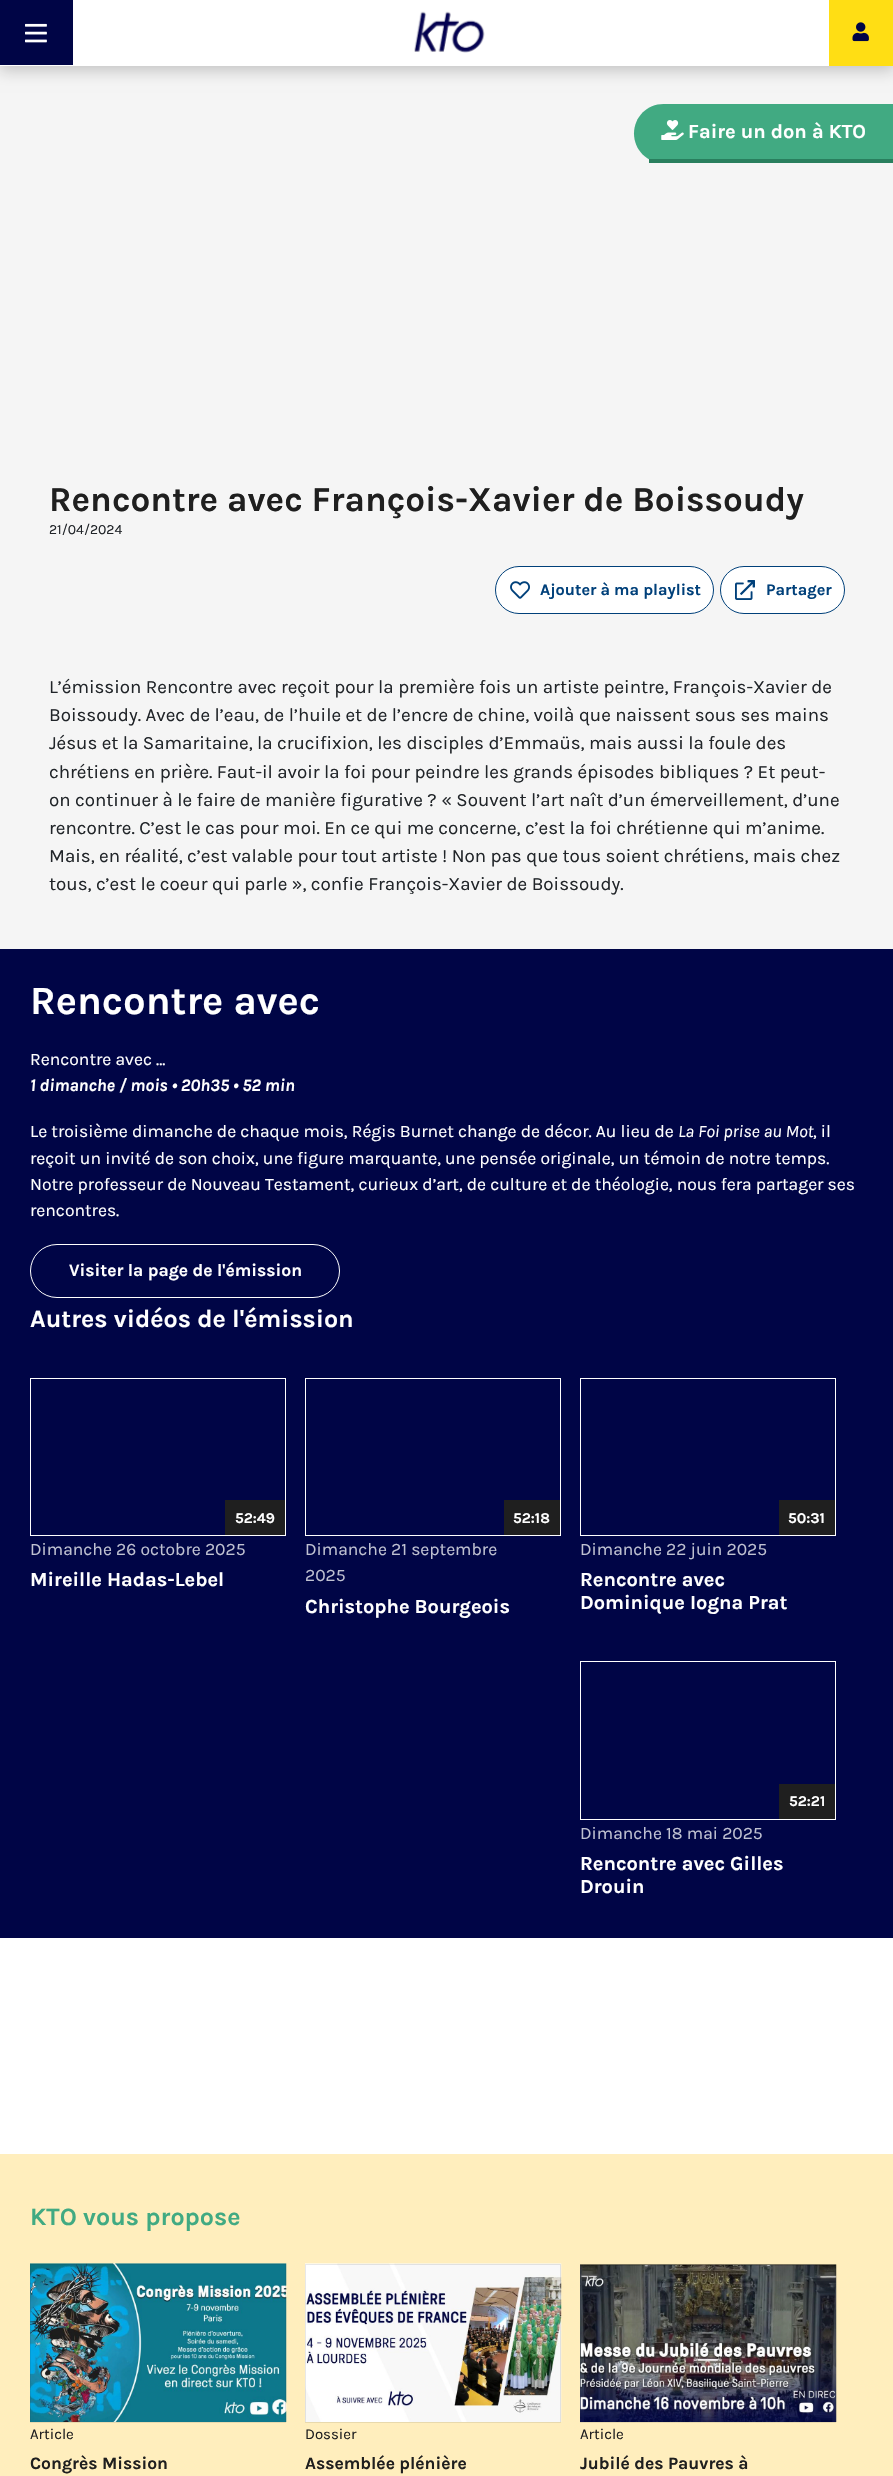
#include "include/core/SkBlurTypes.h"
#include "include/core/SkCanvas.h"
#include "include/core/SkData.h"
#include "include/core/SkFont.h"
#include "include/core/SkFontMgr.h"
#include "include/core/SkImage.h"
#include "include/core/SkMaskFilter.h"
#include "include/core/SkPaint.h"
#include "include/core/SkPathBuilder.h"
#include "include/core/SkTextBlob.h"
#include "include/effects/SkDashPathEffect.h"
#include "include/effects/SkGradientShader.h"
#include "include/utils/SkParsePath.h"

extern sk_sp<SkFontMgr> fontMgr;

void draw(SkCanvas* canvas) {
    SkPaint p;
    p.setAntiAlias(true);
    auto font = [&](const char* family, int weight, float size, bool italic = false) {
        SkFontStyle style(weight, SkFontStyle::kNormal_Width,
            italic ? SkFontStyle::kItalic_Slant : SkFontStyle::kUpright_Slant);
        SkFont result(fontMgr->matchFamilyStyle(family, style), size);
        result.setSubpixel(true);
        return result;
    };
    auto drawPhoto = [&](const char* path, float l, float t, float r, float b) {
        auto image = SkImages::DeferredFromEncodedData(SkData::MakeFromFileName(path));
        canvas->drawImageRect(image, SkRect::MakeLTRB(l, t, r, b), SkSamplingOptions());
    };
    canvas->clear(0xFFFFFFFF);
    p.setColor(0xFFF5F5F5);
    canvas->drawRect(SkRect::MakeLTRB(0, 66, 893, 949), p);
    p.setColor(0x33000000);
    p.setMaskFilter(SkMaskFilter::MakeBlur(kNormal_SkBlurStyle, 7.5f));
    canvas->drawRect(SkRect::MakeLTRB(-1, 3, 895, 71), p);
    p.setMaskFilter(nullptr);
    p.setColor(0xFFFFFFFF);
    canvas->drawRect(SkRect::MakeLTRB(0, 0, 829, 66), p);
    p.setColor(0xFF000546);
    canvas->drawRect(SkRect::MakeLTRB(0, 0, 73, 65), p);
    drawPhoto("media/1.png", 25, 23, 47, 43);
    drawPhoto("media/2.png", 414, 11, 485, 53);
    p.setColor(0xFFFFDE14);
    canvas->drawRect(SkRect::MakeLTRB(829, 0, 893, 66), p);
    drawPhoto("media/3.png", 852, 22, 869, 42);
    p.setColor(0xFF41AA82);
    canvas->drawPath(SkPathBuilder().moveTo(663.5f, 104).lineTo(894, 104).lineTo(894, 163).lineTo(663.5f, 163).cubicTo(647, 163, 634, 150, 634, 133.5f).cubicTo(634, 117, 647, 104, 663.5f, 104).close().detach(), p);
    p.setColor(0xFF297F5E);
    canvas->drawRect(SkRect::MakeLTRB(649, 159, 893, 163), p);
    drawPhoto("media/4.png", 661, 120, 684, 140);
    auto font1 = font("Karla", 700, 20);
    p.setColor(0xFFFFFFFF);
    canvas->drawString("Faire un don à KTO", 688, 138, font1, p);
    p.setColor(0xFFFFEEBD);
    canvas->drawRect(SkRect::MakeLTRB(0, 2154, 893, 2476), p);
    auto font2 = font("Karla", 700, 25);
    p.setColor(0xFF41AA82);
    canvas->drawString("KTO vous propose", 30, 2225, font2, p);
    drawPhoto("media/5.png", 30, 2263, 287, 2422);
    p.setStyle(SkPaint::kStroke_Style);
    p.setStrokeWidth(1);
    p.setColor(0x1C323232);
    canvas->drawRect(SkRect::MakeLTRB(30.5f, 2264.5f, 285.5f, 2422.5f), p);
    auto font3 = font("Karla", 400, 15);
    p.setStyle(SkPaint::kFill_Style);
    p.setColor(0xFF1F1F1F);
    canvas->drawString("Article", 30, 2439, font3, p);
    auto font4 = font("Karla", 700, 17.5f);
    canvas->drawString("Congrès Mission", 30, 2469, font4, p);
    drawPhoto("media/6.png", 305, 2263, 562, 2422);
    p.setStyle(SkPaint::kStroke_Style);
    p.setColor(0x1C323232);
    canvas->drawRect(SkRect::MakeLTRB(305.5f, 2264.5f, 560.5f, 2422.5f), p);
    p.setStyle(SkPaint::kFill_Style);
    p.setColor(0xFF1F1F1F);
    canvas->drawString("Dossier", 305, 2439, font3, p);
    canvas->drawString("Assemblée plénière", 305, 2469, font4, p);
    drawPhoto("media/7.png", 580, 2264, 837, 2422);
    p.setStyle(SkPaint::kStroke_Style);
    p.setColor(0x1C323232);
    canvas->drawRect(SkRect::MakeLTRB(580.5f, 2264.5f, 835.5f, 2422.5f), p);
    p.setStyle(SkPaint::kFill_Style);
    p.setColor(0xFF1F1F1F);
    canvas->drawString("Article", 580, 2439, font3, p);
    canvas->drawString("Jubilé des Pauvres à", 580, 2469, font4, p);
    auto font5 = font("Karla", 700, 35);
    canvas->drawString("Rencontre avec François-Xavier de Boissoudy", 49, 511, font5, p);
    auto font6 = font("Karla", 400, 14);
    p.setColor(0xFF212529);
    canvas->drawString("21/04/2024", 49, 534, font6, p);
    p.setColor(0xFFFFFFFF);
    canvas->drawRoundRect(SkRect::MakeLTRB(495.5f, 566.5f, 713.5f, 613.5f), 23.5f, 23.5f, p);
    p.setStyle(SkPaint::kStroke_Style);
    p.setColor(0xFF00407A);
    canvas->drawRoundRect(SkRect::MakeLTRB(495.5f, 566.5f, 713.5f, 613.5f), 23.5f, 23.5f, p);
    drawPhoto("media/8.png", 510, 581, 530, 599);
    auto font7 = font("Karla", 700, 16.25f);
    p.setStyle(SkPaint::kFill_Style);
    canvas->drawString("Ajouter à ma playlist", 540, 595, font7, p);
    p.setColor(0xFFFFFFFF);
    canvas->drawRoundRect(SkRect::MakeLTRB(720.5f, 566.5f, 844.5f, 613.5f), 23.5f, 23.5f, p);
    p.setStyle(SkPaint::kStroke_Style);
    p.setColor(0xFF00407A);
    canvas->drawRoundRect(SkRect::MakeLTRB(720.5f, 566.5f, 844.5f, 613.5f), 23.5f, 23.5f, p);
    drawPhoto("media/9.png", 735, 580, 755, 600);
    p.setStyle(SkPaint::kFill_Style);
    canvas->drawString("Partager", 766, 595, font7, p);
    auto font8 = font("Karla", 400, 18.75f);
    p.setColor(0xFF212529);
    {
        const struct { const char* s; float x, y; } items[] = {
            {"L’émission Rencontre avec reçoit pour la première fois un artiste peintre, François-Xavier de", 49, 693},
            {"Boissoudy. Avec de l’eau, de l’huile et de l’encre de chine, voilà que naissent sous ses mains", 49, 721},
            {"Jésus et la Samaritaine, la crucifixion, les disciples d’Emmaüs, mais aussi la foule des", 49, 749},
            {"chrétiens en prière. Faut-il avoir la foi pour peindre les grands épisodes bibliques ? Et peut-", 49, 778},
            {"on continuer à le faire de manière figurative ? « Souvent l’art naît d’un émerveillement, d’une", 49, 806},
            {"rencontre. C’est le cas pour moi. En ce qui me concerne, c’est la foi chrétienne qui m’anime.", 49, 834},
            {"Mais, en réalité, c’est valable pour tout artiste ! Non pas que tous soient chrétiens, mais chez", 49, 862},
            {"tous, c’est le coeur qui parle », confie François-Xavier de Boissoudy.", 49, 890},
        };
        for (auto [s, x, y] : items) {
            canvas->drawString(s, x, y, font8, p);
        }
    }
    p.setColor(0xFF000546);
    canvas->drawRect(SkRect::MakeLTRB(0, 949, 893, 1938), p);
    auto font9 = font("Karla", 700, 40);
    p.setColor(0xFFFFFFFF);
    canvas->drawString("Rencontre avec", 30, 1014, font9, p);
    auto font10 = font("Karla", 400, 17.5f);
    canvas->drawString("Rencontre avec ...", 30, 1065, font10, p);
    auto font11 = font("Karla", 700, 17.5f, true);
    canvas->drawString("1 dimanche / mois • 20h35 • 52 min", 30, 1091, font11, p);
    canvas->drawString("Le troisième dimanche de chaque mois, Régis Burnet change de décor. Au lieu de", 30, 1137, font10, p);
    auto font12 = font("Karla", 400, 17.5f, true);
    canvas->drawString("La Foi prise au Mot", 678, 1137, font12, p);
    {
        const struct { const char* s; float x, y; } items[] = {
            {", il", 813, 1137},
            {"reçoit un invité de son choix, une figure marquante, une pensée originale, un témoin de notre temps.", 30, 1164},
            {"Notre professeur de Nouveau Testament, curieux d’art, de culture et de théologie, nous fera partager ses", 30, 1190},
            {"rencontres.", 30, 1216},
        };
        for (auto [s, x, y] : items) {
            canvas->drawString(s, x, y, font10, p);
        }
    }
    p.setStyle(SkPaint::kStroke_Style);
    canvas->drawRoundRect(SkRect::MakeLTRB(30.5f, 1244.5f, 339.5f, 1297.5f), 26.5f, 26.5f, p);
    p.setStyle(SkPaint::kFill_Style);
    canvas->drawString("Visiter la page de l'émission", 69, 1276, font4, p);
    canvas->drawString("Autres vidéos de l'émission", 30, 1327, font2, p);
    p.setStyle(SkPaint::kStroke_Style);
    canvas->drawRect(SkRect::MakeLTRB(30.5f, 1378.5f, 285.5f, 1535.5f), p);
    p.setStyle(SkPaint::kFill_Style);
    p.setColor(0xFF1F1F1F);
    canvas->drawRect(SkRect::MakeLTRB(225, 1500, 285, 1535), p);
    auto font13 = font("Karla", 700, 15);
    p.setColor(0xFFFFFFFF);
    canvas->drawString("52:49", 235, 1523, font13, p);
    p.setColor(0xFFBFC1D1);
    canvas->drawString("Dimanche 26 octobre 2025", 30, 1555, font10, p);
    p.setColor(0xFFFFFFFF);
    canvas->drawString("Mireille Hadas-Lebel", 30, 1586, font1, p);
    p.setStyle(SkPaint::kStroke_Style);
    canvas->drawRect(SkRect::MakeLTRB(305.5f, 1378.5f, 560.5f, 1535.5f), p);
    p.setStyle(SkPaint::kFill_Style);
    p.setColor(0xFF1F1F1F);
    canvas->drawRect(SkRect::MakeLTRB(504, 1500, 560, 1535), p);
    p.setColor(0xFFFFFFFF);
    canvas->drawString("52:18", 513, 1523, font13, p);
    p.setColor(0xFFBFC1D1);
    canvas->drawString("Dimanche 21 septembre", 305, 1555, font10, p);
    canvas->drawString("2025", 305, 1581, font10, p);
    p.setColor(0xFFFFFFFF);
    canvas->drawString("Christophe Bourgeois", 305, 1613, font1, p);
    p.setStyle(SkPaint::kStroke_Style);
    canvas->drawRect(SkRect::MakeLTRB(580.5f, 1378.5f, 835.5f, 1535.5f), p);
    p.setStyle(SkPaint::kFill_Style);
    p.setColor(0xFF1F1F1F);
    canvas->drawRect(SkRect::MakeLTRB(779, 1500, 835, 1535), p);
    p.setColor(0xFFFFFFFF);
    canvas->drawString("50:31", 788, 1523, font13, p);
    p.setColor(0xFFBFC1D1);
    canvas->drawString("Dimanche 22 juin 2025", 580, 1555, font10, p);
    p.setColor(0xFFFFFFFF);
    canvas->drawString("Rencontre avec", 580, 1586, font1, p);
    canvas->drawString("Dominique Iogna Prat", 580, 1609, font1, p);
    p.setStyle(SkPaint::kStroke_Style);
    canvas->drawRect(SkRect::MakeLTRB(580.5f, 1661.5f, 835.5f, 1819.5f), p);
    p.setStyle(SkPaint::kFill_Style);
    p.setColor(0xFF1F1F1F);
    canvas->drawRect(SkRect::MakeLTRB(779, 1784, 835, 1819), p);
    p.setColor(0xFFFFFFFF);
    canvas->drawString("52:21", 789, 1806, font13, p);
    p.setColor(0xFFBFC1D1);
    canvas->drawString("Dimanche 18 mai 2025", 580, 1839, font10, p);
    p.setColor(0xFFFFFFFF);
    canvas->drawString("Rencontre avec Gilles", 580, 1870, font1, p);
    canvas->drawString("Drouin", 580, 1893, font1, p);
}
